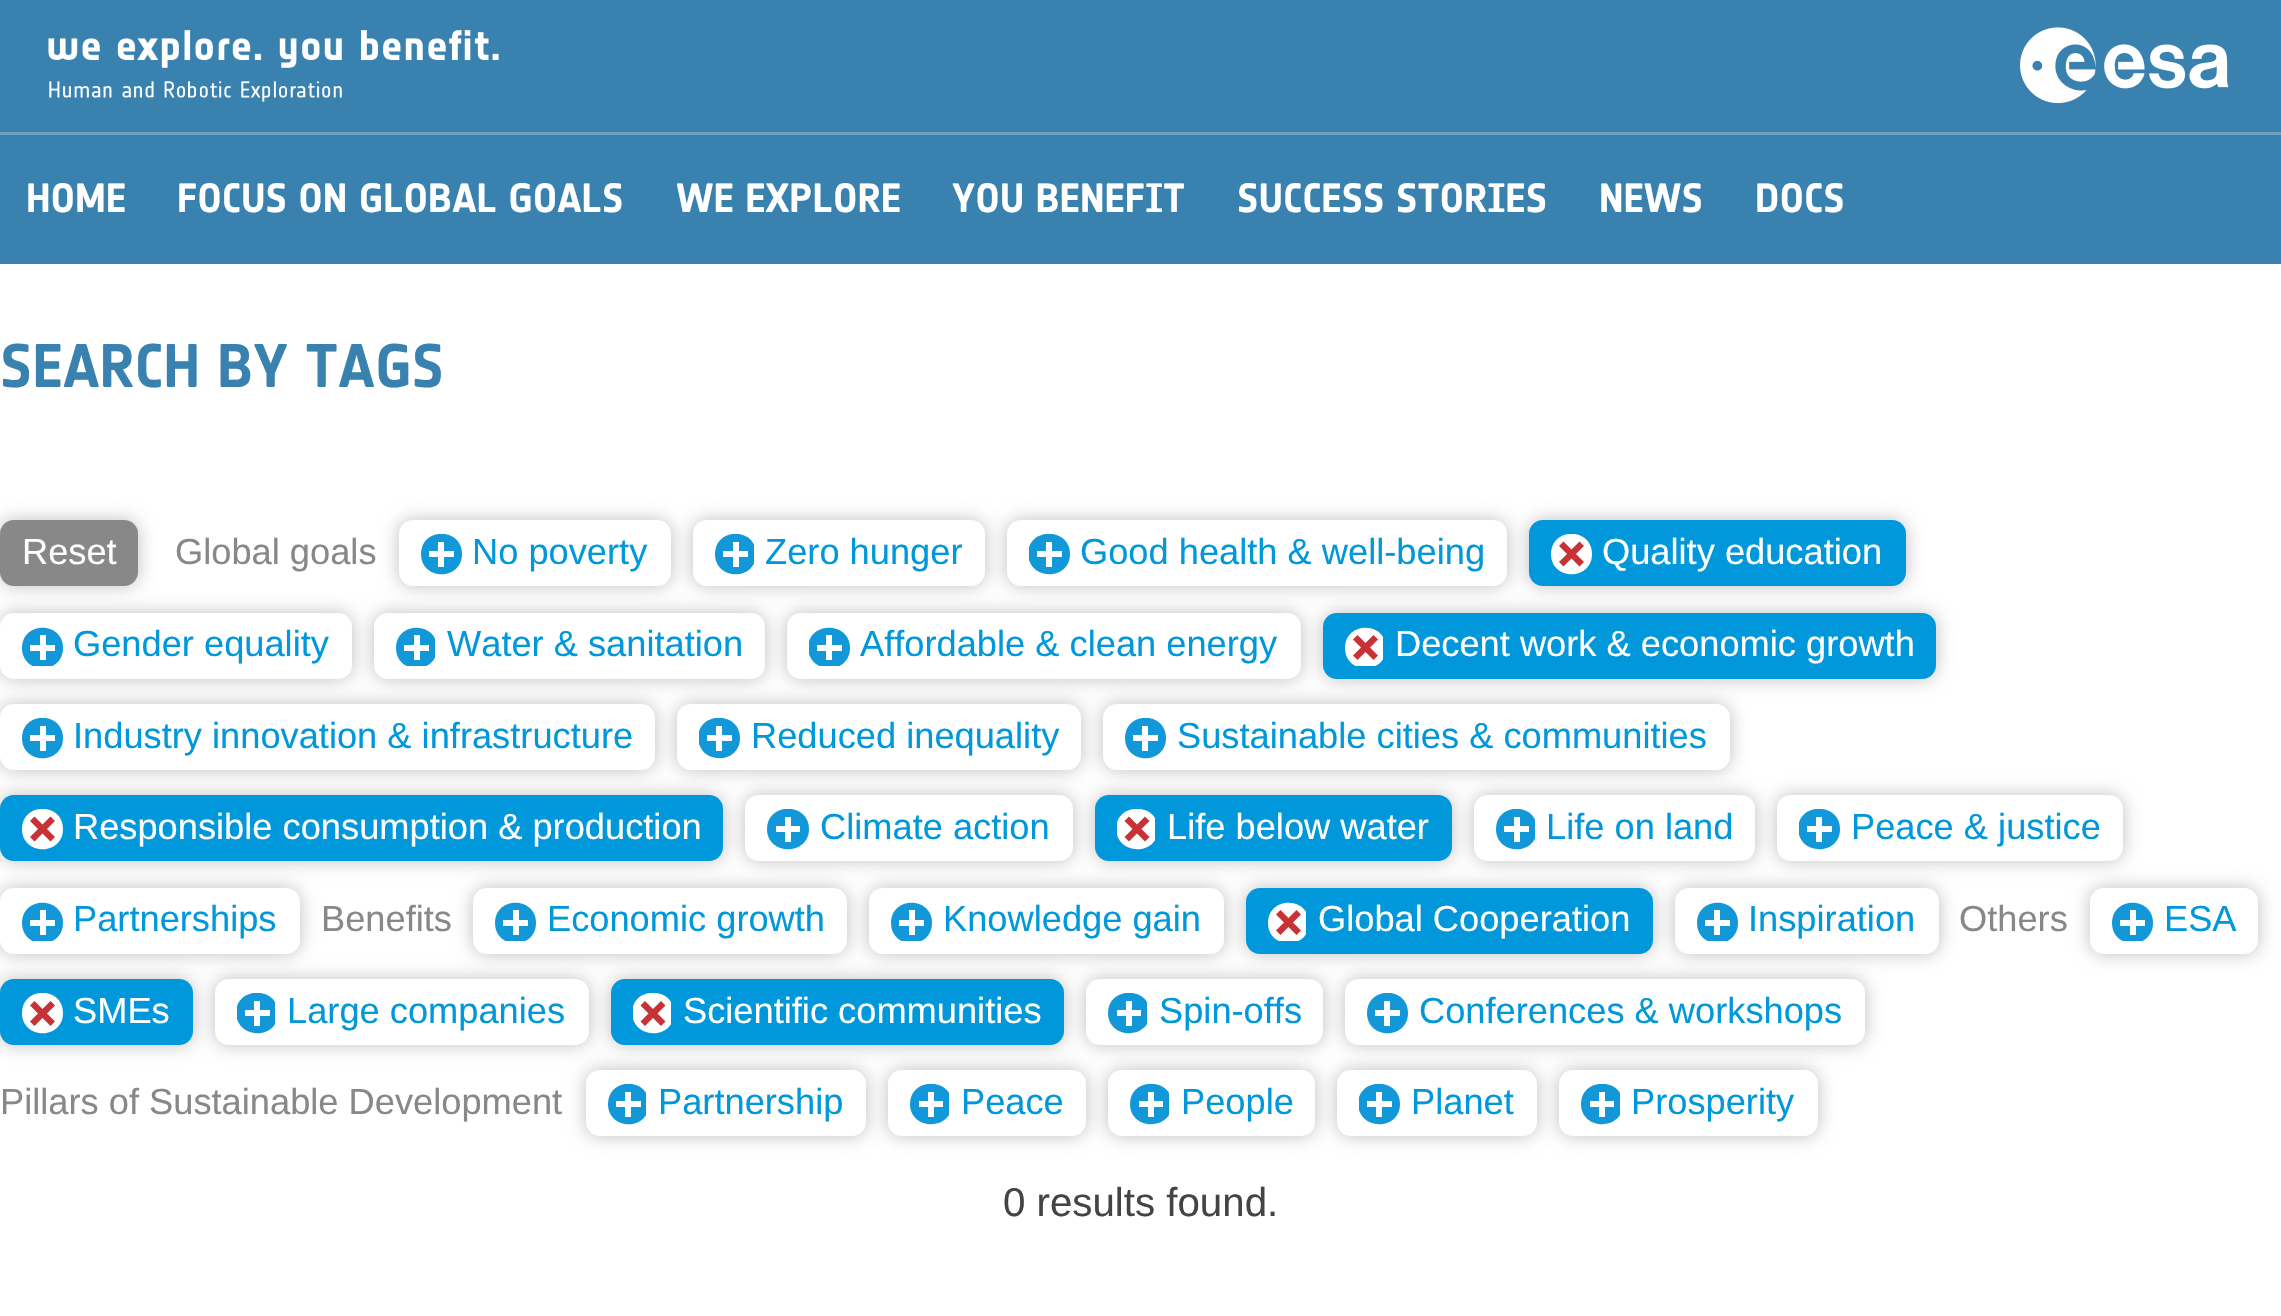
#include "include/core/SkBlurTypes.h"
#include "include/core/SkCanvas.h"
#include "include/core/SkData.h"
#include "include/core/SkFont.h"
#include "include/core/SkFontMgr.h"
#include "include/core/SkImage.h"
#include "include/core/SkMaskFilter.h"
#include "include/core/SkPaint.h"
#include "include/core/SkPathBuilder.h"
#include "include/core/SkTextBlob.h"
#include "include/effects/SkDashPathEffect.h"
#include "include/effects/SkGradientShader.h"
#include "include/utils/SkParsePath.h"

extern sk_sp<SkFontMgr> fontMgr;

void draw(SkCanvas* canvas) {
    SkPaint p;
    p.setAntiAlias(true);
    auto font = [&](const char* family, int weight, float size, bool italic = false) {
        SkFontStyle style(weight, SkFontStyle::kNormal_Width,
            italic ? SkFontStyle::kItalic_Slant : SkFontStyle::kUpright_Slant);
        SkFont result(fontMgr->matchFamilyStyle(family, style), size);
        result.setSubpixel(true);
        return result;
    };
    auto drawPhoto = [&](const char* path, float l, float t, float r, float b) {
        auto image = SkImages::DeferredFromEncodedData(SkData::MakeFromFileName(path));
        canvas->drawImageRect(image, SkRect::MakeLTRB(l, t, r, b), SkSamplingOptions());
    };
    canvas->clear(0xFFFFFFFF);
    p.setColor(0xFF3982AF);
    canvas->drawRect(SkRect::MakeLTRB(0, 0, 2281, 132), p);
    drawPhoto("media/1.png", 48, 30, 499, 102);
    drawPhoto("media/2.png", 2020, 27, 2229, 104);
    canvas->drawRect(SkRect::MakeLTRB(0, 135, 2281, 264), p);
    p.setColor(0xFF6BA1C3);
    canvas->drawRect(SkRect::MakeLTRB(0, 132, 2281, 135), p);
    auto font1 = font("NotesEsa", 700, 40.25f);
    p.setColor(0xFFFFFFFF);
    {
        const struct { const char* s; float x, y; } items[] = {
            {"HOME", 26, 212},
            {"FOCUS ON GLOBAL GOALS", 177, 212},
            {"WE EXPLORE", 676, 212},
            {"YOU BENEFIT", 952, 212},
            {"SUCCESS STORIES", 1237, 212},
            {"NEWS", 1599, 212},
            {"DOCS", 1755, 212},
        };
        for (auto [s, x, y] : items) {
            canvas->drawString(s, x, y, font1, p);
        }
    }
    auto font2 = font("NotesEsa", 700, 60.5f);
    p.setColor(0xFF3982AF);
    canvas->drawString("SEARCH BY TAGS", 0, 387, font2, p);
    p.setColor(0x40000000);
    p.setMaskFilter(SkMaskFilter::MakeBlur(kNormal_SkBlurStyle, 9));
    canvas->drawRoundRect(SkRect::MakeLTRB(0, 520, 138, 586), 14, 14, p);
    p.setMaskFilter(nullptr);
    p.setColor(0xFF888888);
    canvas->drawRoundRect(SkRect::MakeLTRB(0, 520, 138, 586), 14, 14, p);
    auto font3 = font("Liberation Sans", 400, 36.25f);
    p.setColor(0xFFFFFFFF);
    canvas->drawString("Reset", 22, 564, font3, p);
    p.setColor(0xFF888888);
    canvas->drawString("Global goals", 175, 564, font3, p);
    p.setColor(0x40000000);
    p.setMaskFilter(SkMaskFilter::MakeBlur(kNormal_SkBlurStyle, 9));
    canvas->drawRoundRect(SkRect::MakeLTRB(399, 520, 671, 586), 14, 14, p);
    p.setMaskFilter(nullptr);
    p.setColor(0xFFFFFFFF);
    canvas->drawRoundRect(SkRect::MakeLTRB(399, 520, 671, 586), 14, 14, p);
    canvas->save();
    canvas->clipRect(SkRect::MakeLTRB(421, 534, 462, 575));
    p.setColor(0xFF1297D8);
    canvas->drawPath(SkPathBuilder().moveTo(462, 554).cubicTo(462, 581, 421, 581, 421, 554).cubicTo(421, 527, 462, 527, 462, 554).close().detach(), p);
    canvas->restore();
    p.setColor(0xFF0098DB);
    canvas->drawString("No poverty", 472, 564, font3, p);
    p.setColor(0xFFFFFFFF);
    canvas->drawRect(SkRect::MakeLTRB(438, 542, 444, 567), p);
    canvas->drawRect(SkRect::MakeLTRB(429, 551, 454, 557), p);
    p.setColor(0x40000000);
    p.setMaskFilter(SkMaskFilter::MakeBlur(kNormal_SkBlurStyle, 9));
    canvas->drawRoundRect(SkRect::MakeLTRB(693, 520, 985, 586), 14, 14, p);
    p.setMaskFilter(nullptr);
    p.setColor(0xFFFFFFFF);
    canvas->drawRoundRect(SkRect::MakeLTRB(693, 520, 985, 586), 14, 14, p);
    canvas->save();
    canvas->clipRect(SkRect::MakeLTRB(715, 534, 754, 575));
    p.setColor(0xFF1297D8);
    canvas->drawPath(SkPathBuilder().moveTo(756, 554).cubicTo(756, 581, 715, 581, 715, 554).cubicTo(715, 527, 756, 527, 756, 554).close().detach(), p);
    canvas->restore();
    p.setColor(0xFF0098DB);
    canvas->drawString("Zero hunger", 765, 564, font3, p);
    p.setColor(0xFFFFFFFF);
    canvas->drawRect(SkRect::MakeLTRB(733, 542, 739, 567), p);
    canvas->drawRect(SkRect::MakeLTRB(723, 551, 748, 557), p);
    p.setColor(0x40000000);
    p.setMaskFilter(SkMaskFilter::MakeBlur(kNormal_SkBlurStyle, 9));
    canvas->drawRoundRect(SkRect::MakeLTRB(1007, 520, 1507, 586), 14, 14, p);
    p.setMaskFilter(nullptr);
    p.setColor(0xFFFFFFFF);
    canvas->drawRoundRect(SkRect::MakeLTRB(1007, 520, 1507, 586), 14, 14, p);
    canvas->save();
    canvas->clipRect(SkRect::MakeLTRB(1029, 534, 1070, 575));
    p.setColor(0xFF1297D8);
    canvas->drawPath(SkPathBuilder().moveTo(1070, 554).cubicTo(1070, 581, 1029, 581, 1028, 554).cubicTo(1028, 527, 1070, 527, 1070, 554).close().detach(), p);
    canvas->restore();
    p.setColor(0xFF0098DB);
    canvas->drawString("Good health & well-being", 1080, 564, font3, p);
    p.setColor(0xFFFFFFFF);
    canvas->drawRect(SkRect::MakeLTRB(1046, 542, 1052, 567), p);
    canvas->drawRect(SkRect::MakeLTRB(1037, 551, 1062, 557), p);
    p.setColor(0x40000000);
    p.setMaskFilter(SkMaskFilter::MakeBlur(kNormal_SkBlurStyle, 9));
    canvas->drawRoundRect(SkRect::MakeLTRB(1529, 520, 1906, 586), 14, 14, p);
    p.setMaskFilter(nullptr);
    p.setColor(0xFF0098DB);
    canvas->drawRoundRect(SkRect::MakeLTRB(1529, 520, 1906, 586), 14, 14, p);
    canvas->save();
    canvas->clipRect(SkRect::MakeLTRB(1551, 534, 1592, 575));
    p.setColor(0xFFFFFFFF);
    canvas->drawPath(SkPathBuilder().moveTo(1592, 554).cubicTo(1592, 581, 1551, 581, 1551, 554).cubicTo(1551, 527, 1592, 527, 1592, 554).close().detach(), p);
    canvas->restore();
    canvas->drawString("Quality education", 1602, 564, font3, p);
    p.setColor(0xFFC63235);
    canvas->drawPath(SkPathBuilder().moveTo(1563.5f, 566.5f).lineTo(1559, 562).lineTo(1579.5f, 541.5f).lineTo(1584, 546).close().detach(), p);
    canvas->drawPath(SkPathBuilder().moveTo(1584, 562).lineTo(1579.5f, 566.5f).lineTo(1559, 546).lineTo(1563.5f, 541.5f).close().detach(), p);
    p.setColor(0x40000000);
    p.setMaskFilter(SkMaskFilter::MakeBlur(kNormal_SkBlurStyle, 9));
    canvas->drawRoundRect(SkRect::MakeLTRB(0, 613, 352, 679), 14, 14, p);
    p.setMaskFilter(nullptr);
    p.setColor(0xFFFFFFFF);
    canvas->drawRoundRect(SkRect::MakeLTRB(0, 613, 352, 679), 14, 14, p);
    canvas->save();
    canvas->clipRect(SkRect::MakeLTRB(22, 627, 63, 666));
    p.setColor(0xFF1297D8);
    canvas->drawPath(SkPathBuilder().moveTo(63, 648).cubicTo(63, 675, 22, 675, 22, 648).cubicTo(22, 621, 63, 621, 63, 648).close().detach(), p);
    canvas->restore();
    p.setColor(0xFF0098DB);
    canvas->drawString("Gender equality", 73, 656, font3, p);
    p.setColor(0xFFFFFFFF);
    canvas->drawRect(SkRect::MakeLTRB(40, 635, 46, 660), p);
    canvas->drawRect(SkRect::MakeLTRB(30, 645, 55, 651), p);
    p.setColor(0x40000000);
    p.setMaskFilter(SkMaskFilter::MakeBlur(kNormal_SkBlurStyle, 9));
    canvas->drawRoundRect(SkRect::MakeLTRB(374, 613, 765, 679), 14, 14, p);
    p.setMaskFilter(nullptr);
    p.setColor(0xFFFFFFFF);
    canvas->drawRoundRect(SkRect::MakeLTRB(374, 613, 765, 679), 14, 14, p);
    canvas->save();
    canvas->clipRect(SkRect::MakeLTRB(396, 627, 435, 666));
    p.setColor(0xFF1297D8);
    canvas->drawPath(SkPathBuilder().moveTo(437, 648).cubicTo(437, 675, 396, 675, 396, 648).cubicTo(396, 621, 437, 621, 437, 648).close().detach(), p);
    canvas->restore();
    p.setColor(0xFF0098DB);
    canvas->drawString("Water & sanitation", 447, 656, font3, p);
    p.setColor(0xFFFFFFFF);
    canvas->drawRect(SkRect::MakeLTRB(414, 635, 420, 660), p);
    canvas->drawRect(SkRect::MakeLTRB(404, 645, 429, 651), p);
    p.setColor(0x40000000);
    p.setMaskFilter(SkMaskFilter::MakeBlur(kNormal_SkBlurStyle, 9));
    canvas->drawRoundRect(SkRect::MakeLTRB(787, 613, 1301, 679), 14, 14, p);
    p.setMaskFilter(nullptr);
    p.setColor(0xFFFFFFFF);
    canvas->drawRoundRect(SkRect::MakeLTRB(787, 613, 1301, 679), 14, 14, p);
    canvas->save();
    canvas->clipRect(SkRect::MakeLTRB(809, 627, 850, 666));
    p.setColor(0xFF1297D8);
    canvas->drawPath(SkPathBuilder().moveTo(850, 648).cubicTo(850, 675, 809, 675, 808, 648).cubicTo(808, 621, 850, 621, 850, 648).close().detach(), p);
    canvas->restore();
    p.setColor(0xFF0098DB);
    canvas->drawString("Affordable & clean energy", 860, 656, font3, p);
    p.setColor(0xFFFFFFFF);
    canvas->drawRect(SkRect::MakeLTRB(826, 635, 832, 660), p);
    canvas->drawRect(SkRect::MakeLTRB(817, 645, 842, 651), p);
    p.setColor(0x40000000);
    p.setMaskFilter(SkMaskFilter::MakeBlur(kNormal_SkBlurStyle, 9));
    canvas->drawRoundRect(SkRect::MakeLTRB(1323, 613, 1936, 679), 14, 14, p);
    p.setMaskFilter(nullptr);
    p.setColor(0xFF0098DB);
    canvas->drawRoundRect(SkRect::MakeLTRB(1323, 613, 1936, 679), 14, 14, p);
    canvas->save();
    canvas->clipRect(SkRect::MakeLTRB(1345, 627, 1383, 666));
    p.setColor(0xFFFFFFFF);
    canvas->drawPath(SkPathBuilder().moveTo(1386, 648).cubicTo(1386, 675, 1345, 675, 1345, 648).cubicTo(1345, 621, 1386, 621, 1386, 648).close().detach(), p);
    canvas->restore();
    canvas->drawString("Decent work & economic growth", 1395, 656, font3, p);
    p.setColor(0xFFC63235);
    canvas->drawPath(SkPathBuilder().moveTo(1357.5f, 660).lineTo(1353, 655.5f).lineTo(1373.5f, 635).lineTo(1378, 639.5f).close().detach(), p);
    canvas->drawPath(SkPathBuilder().moveTo(1378, 655.5f).lineTo(1373.5f, 660).lineTo(1353, 639.5f).lineTo(1357.5f, 635).close().detach(), p);
    p.setColor(0x40000000);
    p.setMaskFilter(SkMaskFilter::MakeBlur(kNormal_SkBlurStyle, 9));
    canvas->drawRoundRect(SkRect::MakeLTRB(0, 704, 655, 770), 14, 14, p);
    p.setMaskFilter(nullptr);
    p.setColor(0xFFFFFFFF);
    canvas->drawRoundRect(SkRect::MakeLTRB(0, 704, 655, 770), 14, 14, p);
    canvas->save();
    canvas->clipRect(SkRect::MakeLTRB(22, 718, 63, 759));
    p.setColor(0xFF1297D8);
    canvas->drawPath(SkPathBuilder().moveTo(63, 738).cubicTo(63, 765, 22, 765, 22, 738).cubicTo(22, 711, 63, 711, 63, 738).close().detach(), p);
    canvas->restore();
    p.setColor(0xFF0098DB);
    canvas->drawString("Industry innovation & infrastructure", 73, 748, font3, p);
    p.setColor(0xFFFFFFFF);
    canvas->drawRect(SkRect::MakeLTRB(40, 726, 46, 751), p);
    canvas->drawRect(SkRect::MakeLTRB(30, 735, 55, 741), p);
    p.setColor(0x40000000);
    p.setMaskFilter(SkMaskFilter::MakeBlur(kNormal_SkBlurStyle, 9));
    canvas->drawRoundRect(SkRect::MakeLTRB(677, 704, 1081, 770), 14, 14, p);
    p.setMaskFilter(nullptr);
    p.setColor(0xFFFFFFFF);
    canvas->drawRoundRect(SkRect::MakeLTRB(677, 704, 1081, 770), 14, 14, p);
    canvas->save();
    canvas->clipRect(SkRect::MakeLTRB(699, 718, 740, 759));
    p.setColor(0xFF1297D8);
    canvas->drawPath(SkPathBuilder().moveTo(740, 738).cubicTo(740, 765, 699, 765, 698, 738).cubicTo(698, 711, 740, 711, 740, 738).close().detach(), p);
    canvas->restore();
    p.setColor(0xFF0098DB);
    canvas->drawString("Reduced inequality", 751, 748, font3, p);
    p.setColor(0xFFFFFFFF);
    canvas->drawRect(SkRect::MakeLTRB(716, 726, 722, 751), p);
    canvas->drawRect(SkRect::MakeLTRB(707, 735, 732, 741), p);
    p.setColor(0x40000000);
    p.setMaskFilter(SkMaskFilter::MakeBlur(kNormal_SkBlurStyle, 9));
    canvas->drawRoundRect(SkRect::MakeLTRB(1103, 704, 1730, 770), 14, 14, p);
    p.setMaskFilter(nullptr);
    p.setColor(0xFFFFFFFF);
    canvas->drawRoundRect(SkRect::MakeLTRB(1103, 704, 1730, 770), 14, 14, p);
    canvas->save();
    canvas->clipRect(SkRect::MakeLTRB(1125, 718, 1166, 759));
    p.setColor(0xFF1297D8);
    canvas->drawPath(SkPathBuilder().moveTo(1166, 738).cubicTo(1166, 765, 1125, 765, 1125, 738).cubicTo(1125, 711, 1166, 711, 1166, 738).close().detach(), p);
    canvas->restore();
    p.setColor(0xFF0098DB);
    canvas->drawString("Sustainable cities & communities", 1177, 748, font3, p);
    p.setColor(0xFFFFFFFF);
    canvas->drawRect(SkRect::MakeLTRB(1142, 726, 1148, 751), p);
    canvas->drawRect(SkRect::MakeLTRB(1133, 735, 1158, 741), p);
    p.setColor(0x40000000);
    p.setMaskFilter(SkMaskFilter::MakeBlur(kNormal_SkBlurStyle, 9));
    canvas->drawRoundRect(SkRect::MakeLTRB(0, 795, 723, 861), 14, 14, p);
    p.setMaskFilter(nullptr);
    p.setColor(0xFF0098DB);
    canvas->drawRoundRect(SkRect::MakeLTRB(0, 795, 723, 861), 14, 14, p);
    canvas->save();
    canvas->clipRect(SkRect::MakeLTRB(22, 809, 63, 850));
    p.setColor(0xFFFFFFFF);
    canvas->drawPath(SkPathBuilder().moveTo(63, 829).cubicTo(63, 856, 22, 856, 22, 829).cubicTo(22, 802, 63, 802, 63, 829).close().detach(), p);
    canvas->restore();
    canvas->drawString("Responsible consumption & production", 73, 839, font3, p);
    p.setColor(0xFFC63235);
    canvas->drawPath(SkPathBuilder().moveTo(34.5f, 841.5f).lineTo(30, 837).lineTo(50.5f, 816.5f).lineTo(55, 821).close().detach(), p);
    canvas->drawPath(SkPathBuilder().moveTo(55, 837).lineTo(50.5f, 841.5f).lineTo(30, 821).lineTo(34.5f, 816.5f).close().detach(), p);
    p.setColor(0x40000000);
    p.setMaskFilter(SkMaskFilter::MakeBlur(kNormal_SkBlurStyle, 9));
    canvas->drawRoundRect(SkRect::MakeLTRB(745, 795, 1073, 861), 14, 14, p);
    p.setMaskFilter(nullptr);
    p.setColor(0xFFFFFFFF);
    canvas->drawRoundRect(SkRect::MakeLTRB(745, 795, 1073, 861), 14, 14, p);
    canvas->save();
    canvas->clipRect(SkRect::MakeLTRB(767, 809, 809, 850));
    p.setColor(0xFF1297D8);
    canvas->drawPath(SkPathBuilder().moveTo(809, 829).cubicTo(809, 856, 767, 856, 767, 829).cubicTo(767, 802, 809, 802, 809, 829).close().detach(), p);
    canvas->restore();
    p.setColor(0xFF0098DB);
    canvas->drawString("Climate action", 820, 839, font3, p);
    p.setColor(0xFFFFFFFF);
    canvas->drawRect(SkRect::MakeLTRB(785, 817, 791, 842), p);
    canvas->drawRect(SkRect::MakeLTRB(776, 826, 800, 832), p);
    p.setColor(0x40000000);
    p.setMaskFilter(SkMaskFilter::MakeBlur(kNormal_SkBlurStyle, 9));
    canvas->drawRoundRect(SkRect::MakeLTRB(1095, 795, 1452, 861), 14, 14, p);
    p.setMaskFilter(nullptr);
    p.setColor(0xFF0098DB);
    canvas->drawRoundRect(SkRect::MakeLTRB(1095, 795, 1452, 861), 14, 14, p);
    canvas->save();
    canvas->clipRect(SkRect::MakeLTRB(1117, 809, 1155, 850));
    p.setColor(0xFFFFFFFF);
    canvas->drawPath(SkPathBuilder().moveTo(1158, 829).cubicTo(1158, 856, 1117, 856, 1116, 829).cubicTo(1116, 802, 1158, 802, 1158, 829).close().detach(), p);
    canvas->restore();
    canvas->drawString("Life below water", 1167, 839, font3, p);
    p.setColor(0xFFC63235);
    canvas->drawPath(SkPathBuilder().moveTo(1129, 841.5f).lineTo(1124.5f, 837).lineTo(1145, 816.5f).lineTo(1149.5f, 821).close().detach(), p);
    canvas->drawPath(SkPathBuilder().moveTo(1149.5f, 837).lineTo(1145, 841.5f).lineTo(1124.5f, 821).lineTo(1129, 816.5f).close().detach(), p);
    p.setColor(0x40000000);
    p.setMaskFilter(SkMaskFilter::MakeBlur(kNormal_SkBlurStyle, 9));
    canvas->drawRoundRect(SkRect::MakeLTRB(1474, 795, 1755, 861), 14, 14, p);
    p.setMaskFilter(nullptr);
    p.setColor(0xFFFFFFFF);
    canvas->drawRoundRect(SkRect::MakeLTRB(1474, 795, 1755, 861), 14, 14, p);
    canvas->save();
    canvas->clipRect(SkRect::MakeLTRB(1496, 809, 1535, 850));
    p.setColor(0xFF1297D8);
    canvas->drawPath(SkPathBuilder().moveTo(1537, 829).cubicTo(1537, 856, 1496, 856, 1496, 829).cubicTo(1496, 802, 1537, 802, 1537, 829).close().detach(), p);
    canvas->restore();
    p.setColor(0xFF0098DB);
    canvas->drawString("Life on land", 1546, 839, font3, p);
    p.setColor(0xFFFFFFFF);
    canvas->drawRect(SkRect::MakeLTRB(1514, 817, 1520, 842), p);
    canvas->drawRect(SkRect::MakeLTRB(1504, 826, 1529, 832), p);
    p.setColor(0x40000000);
    p.setMaskFilter(SkMaskFilter::MakeBlur(kNormal_SkBlurStyle, 9));
    canvas->drawRoundRect(SkRect::MakeLTRB(1777, 795, 2123, 861), 14, 14, p);
    p.setMaskFilter(nullptr);
    p.setColor(0xFFFFFFFF);
    canvas->drawRoundRect(SkRect::MakeLTRB(1777, 795, 2123, 861), 14, 14, p);
    canvas->save();
    canvas->clipRect(SkRect::MakeLTRB(1799, 809, 1840, 850));
    p.setColor(0xFF1297D8);
    canvas->drawPath(SkPathBuilder().moveTo(1840, 829).cubicTo(1840, 856, 1799, 856, 1798, 829).cubicTo(1798, 802, 1840, 802, 1840, 829).close().detach(), p);
    canvas->restore();
    p.setColor(0xFF0098DB);
    canvas->drawString("Peace & justice", 1851, 839, font3, p);
    p.setColor(0xFFFFFFFF);
    canvas->drawRect(SkRect::MakeLTRB(1816, 817, 1822, 842), p);
    canvas->drawRect(SkRect::MakeLTRB(1807, 826, 1832, 832), p);
    p.setColor(0x40000000);
    p.setMaskFilter(SkMaskFilter::MakeBlur(kNormal_SkBlurStyle, 9));
    canvas->drawRoundRect(SkRect::MakeLTRB(0, 888, 300, 954), 14, 14, p);
    p.setMaskFilter(nullptr);
    p.setColor(0xFFFFFFFF);
    canvas->drawRoundRect(SkRect::MakeLTRB(0, 888, 300, 954), 14, 14, p);
    canvas->save();
    canvas->clipRect(SkRect::MakeLTRB(22, 902, 63, 941));
    p.setColor(0xFF1297D8);
    canvas->drawPath(SkPathBuilder().moveTo(63, 923).cubicTo(63, 950, 22, 950, 22, 923).cubicTo(22, 896, 63, 896, 63, 923).close().detach(), p);
    canvas->restore();
    p.setColor(0xFF0098DB);
    canvas->drawString("Partnerships", 73, 931, font3, p);
    p.setColor(0xFFFFFFFF);
    canvas->drawRect(SkRect::MakeLTRB(40, 910, 46, 935), p);
    canvas->drawRect(SkRect::MakeLTRB(30, 920, 55, 926), p);
    p.setColor(0xFF888888);
    canvas->drawString("Benefits", 321, 931, font3, p);
    p.setColor(0x40000000);
    p.setMaskFilter(SkMaskFilter::MakeBlur(kNormal_SkBlurStyle, 9));
    canvas->drawRoundRect(SkRect::MakeLTRB(473, 888, 847, 954), 14, 14, p);
    p.setMaskFilter(nullptr);
    p.setColor(0xFFFFFFFF);
    canvas->drawRoundRect(SkRect::MakeLTRB(473, 888, 847, 954), 14, 14, p);
    canvas->save();
    canvas->clipRect(SkRect::MakeLTRB(495, 902, 536, 941));
    p.setColor(0xFF1297D8);
    canvas->drawPath(SkPathBuilder().moveTo(536, 923).cubicTo(536, 950, 495, 950, 495, 923).cubicTo(495, 896, 536, 896, 536, 923).close().detach(), p);
    canvas->restore();
    p.setColor(0xFF0098DB);
    canvas->drawString("Economic growth", 547, 931, font3, p);
    p.setColor(0xFFFFFFFF);
    canvas->drawRect(SkRect::MakeLTRB(513, 910, 519, 935), p);
    canvas->drawRect(SkRect::MakeLTRB(503, 920, 528, 926), p);
    p.setColor(0x40000000);
    p.setMaskFilter(SkMaskFilter::MakeBlur(kNormal_SkBlurStyle, 9));
    canvas->drawRoundRect(SkRect::MakeLTRB(869, 888, 1224, 954), 14, 14, p);
    p.setMaskFilter(nullptr);
    p.setColor(0xFFFFFFFF);
    canvas->drawRoundRect(SkRect::MakeLTRB(869, 888, 1224, 954), 14, 14, p);
    canvas->save();
    canvas->clipRect(SkRect::MakeLTRB(891, 902, 932, 941));
    p.setColor(0xFF1297D8);
    canvas->drawPath(SkPathBuilder().moveTo(932, 923).cubicTo(932, 950, 891, 950, 891, 923).cubicTo(891, 896, 932, 896, 932, 923).close().detach(), p);
    canvas->restore();
    p.setColor(0xFF0098DB);
    canvas->drawString("Knowledge gain", 943, 931, font3, p);
    p.setColor(0xFFFFFFFF);
    canvas->drawRect(SkRect::MakeLTRB(909, 910, 915, 935), p);
    canvas->drawRect(SkRect::MakeLTRB(899, 920, 924, 926), p);
    p.setColor(0x40000000);
    p.setMaskFilter(SkMaskFilter::MakeBlur(kNormal_SkBlurStyle, 9));
    canvas->drawRoundRect(SkRect::MakeLTRB(1246, 888, 1653, 954), 14, 14, p);
    p.setMaskFilter(nullptr);
    p.setColor(0xFF0098DB);
    canvas->drawRoundRect(SkRect::MakeLTRB(1246, 888, 1653, 954), 14, 14, p);
    canvas->save();
    canvas->clipRect(SkRect::MakeLTRB(1268, 902, 1306, 941));
    p.setColor(0xFFFFFFFF);
    canvas->drawPath(SkPathBuilder().moveTo(1309, 923).cubicTo(1309, 950, 1268, 950, 1268, 923).cubicTo(1268, 896, 1309, 896, 1309, 923).close().detach(), p);
    canvas->restore();
    canvas->drawString("Global Cooperation", 1318, 931, font3, p);
    p.setColor(0xFFC63235);
    canvas->drawPath(SkPathBuilder().moveTo(1280.5f, 935).lineTo(1276, 930.5f).lineTo(1296.5f, 910).lineTo(1301, 914.5f).close().detach(), p);
    canvas->drawPath(SkPathBuilder().moveTo(1301, 930.5f).lineTo(1296.5f, 935).lineTo(1276, 914.5f).lineTo(1280.5f, 910).close().detach(), p);
    p.setColor(0x40000000);
    p.setMaskFilter(SkMaskFilter::MakeBlur(kNormal_SkBlurStyle, 9));
    canvas->drawRoundRect(SkRect::MakeLTRB(1675, 888, 1939, 954), 14, 14, p);
    p.setMaskFilter(nullptr);
    p.setColor(0xFFFFFFFF);
    canvas->drawRoundRect(SkRect::MakeLTRB(1675, 888, 1939, 954), 14, 14, p);
    canvas->save();
    canvas->clipRect(SkRect::MakeLTRB(1697, 902, 1738, 941));
    p.setColor(0xFF1297D8);
    canvas->drawPath(SkPathBuilder().moveTo(1738, 923).cubicTo(1738, 950, 1697, 950, 1697, 923).cubicTo(1697, 896, 1738, 896, 1738, 923).close().detach(), p);
    canvas->restore();
    p.setColor(0xFF0098DB);
    canvas->drawString("Inspiration", 1748, 931, font3, p);
    p.setColor(0xFFFFFFFF);
    canvas->drawRect(SkRect::MakeLTRB(1714, 910, 1720, 935), p);
    canvas->drawRect(SkRect::MakeLTRB(1705, 920, 1730, 926), p);
    p.setColor(0xFF888888);
    canvas->drawString("Others", 1959, 931, font3, p);
    p.setColor(0x40000000);
    p.setMaskFilter(SkMaskFilter::MakeBlur(kNormal_SkBlurStyle, 9));
    canvas->drawRoundRect(SkRect::MakeLTRB(2090, 888, 2258, 954), 14, 14, p);
    p.setMaskFilter(nullptr);
    p.setColor(0xFFFFFFFF);
    canvas->drawRoundRect(SkRect::MakeLTRB(2090, 888, 2258, 954), 14, 14, p);
    canvas->save();
    canvas->clipRect(SkRect::MakeLTRB(2112, 902, 2153, 941));
    p.setColor(0xFF1297D8);
    canvas->drawPath(SkPathBuilder().moveTo(2153, 923).cubicTo(2153, 950, 2112, 950, 2112, 923).cubicTo(2112, 896, 2153, 896, 2153, 923).close().detach(), p);
    canvas->restore();
    p.setColor(0xFF0098DB);
    canvas->drawString("ESA", 2164, 931, font3, p);
    p.setColor(0xFFFFFFFF);
    canvas->drawRect(SkRect::MakeLTRB(2130, 910, 2136, 935), p);
    canvas->drawRect(SkRect::MakeLTRB(2120, 920, 2145, 926), p);
    p.setColor(0x40000000);
    p.setMaskFilter(SkMaskFilter::MakeBlur(kNormal_SkBlurStyle, 9));
    canvas->drawRoundRect(SkRect::MakeLTRB(0, 979, 193, 1045), 14, 14, p);
    p.setMaskFilter(nullptr);
    p.setColor(0xFF0098DB);
    canvas->drawRoundRect(SkRect::MakeLTRB(0, 979, 193, 1045), 14, 14, p);
    canvas->save();
    canvas->clipRect(SkRect::MakeLTRB(22, 993, 63, 1034));
    p.setColor(0xFFFFFFFF);
    canvas->drawPath(SkPathBuilder().moveTo(63, 1013).cubicTo(63, 1040, 22, 1040, 22, 1013).cubicTo(22, 986, 63, 986, 63, 1013).close().detach(), p);
    canvas->restore();
    canvas->drawString("SMEs", 73, 1023, font3, p);
    p.setColor(0xFFC63235);
    canvas->drawPath(SkPathBuilder().moveTo(34.5f, 1026).lineTo(30, 1021.5f).lineTo(50.5f, 1001).lineTo(55, 1005.5f).close().detach(), p);
    canvas->drawPath(SkPathBuilder().moveTo(55, 1021.5f).lineTo(50.5f, 1026).lineTo(30, 1005.5f).lineTo(34.5f, 1001).close().detach(), p);
    p.setColor(0x40000000);
    p.setMaskFilter(SkMaskFilter::MakeBlur(kNormal_SkBlurStyle, 9));
    canvas->drawRoundRect(SkRect::MakeLTRB(215, 979, 589, 1045), 14, 14, p);
    p.setMaskFilter(nullptr);
    p.setColor(0xFFFFFFFF);
    canvas->drawRoundRect(SkRect::MakeLTRB(215, 979, 589, 1045), 14, 14, p);
    canvas->save();
    canvas->clipRect(SkRect::MakeLTRB(237, 993, 275, 1034));
    p.setColor(0xFF1297D8);
    canvas->drawPath(SkPathBuilder().moveTo(278, 1013).cubicTo(278, 1040, 237, 1040, 236, 1013).cubicTo(236, 986, 278, 986, 278, 1013).close().detach(), p);
    canvas->restore();
    p.setColor(0xFF0098DB);
    canvas->drawString("Large companies", 287, 1023, font3, p);
    p.setColor(0xFFFFFFFF);
    canvas->drawRect(SkRect::MakeLTRB(254, 1001, 260, 1026), p);
    canvas->drawRect(SkRect::MakeLTRB(245, 1010, 270, 1016), p);
    p.setColor(0x40000000);
    p.setMaskFilter(SkMaskFilter::MakeBlur(kNormal_SkBlurStyle, 9));
    canvas->drawRoundRect(SkRect::MakeLTRB(611, 979, 1064, 1045), 14, 14, p);
    p.setMaskFilter(nullptr);
    p.setColor(0xFF0098DB);
    canvas->drawRoundRect(SkRect::MakeLTRB(611, 979, 1064, 1045), 14, 14, p);
    canvas->save();
    canvas->clipRect(SkRect::MakeLTRB(633, 993, 671, 1034));
    p.setColor(0xFFFFFFFF);
    canvas->drawPath(SkPathBuilder().moveTo(674, 1013).cubicTo(674, 1040, 633, 1040, 632, 1013).cubicTo(632, 986, 674, 986, 674, 1013).close().detach(), p);
    canvas->restore();
    canvas->drawString("Scientific communities", 683, 1023, font3, p);
    p.setColor(0xFFC63235);
    canvas->drawPath(SkPathBuilder().moveTo(645, 1026).lineTo(640.5f, 1021.5f).lineTo(661, 1001).lineTo(665.5f, 1005.5f).close().detach(), p);
    canvas->drawPath(SkPathBuilder().moveTo(665.5f, 1021.5f).lineTo(661, 1026).lineTo(640.5f, 1005.5f).lineTo(645, 1001).close().detach(), p);
    p.setColor(0x40000000);
    p.setMaskFilter(SkMaskFilter::MakeBlur(kNormal_SkBlurStyle, 9));
    canvas->drawRoundRect(SkRect::MakeLTRB(1086, 979, 1323, 1045), 14, 14, p);
    p.setMaskFilter(nullptr);
    p.setColor(0xFFFFFFFF);
    canvas->drawRoundRect(SkRect::MakeLTRB(1086, 979, 1323, 1045), 14, 14, p);
    canvas->save();
    canvas->clipRect(SkRect::MakeLTRB(1108, 993, 1147, 1034));
    p.setColor(0xFF1297D8);
    canvas->drawPath(SkPathBuilder().moveTo(1150, 1013).cubicTo(1150, 1040, 1108, 1040, 1108, 1013).cubicTo(1108, 986, 1150, 986, 1150, 1013).close().detach(), p);
    canvas->restore();
    p.setColor(0xFF0098DB);
    canvas->drawString("Spin-offs", 1159, 1023, font3, p);
    p.setColor(0xFFFFFFFF);
    canvas->drawRect(SkRect::MakeLTRB(1126, 1001, 1132, 1026), p);
    canvas->drawRect(SkRect::MakeLTRB(1117, 1010, 1141, 1016), p);
    p.setColor(0x40000000);
    p.setMaskFilter(SkMaskFilter::MakeBlur(kNormal_SkBlurStyle, 9));
    canvas->drawRoundRect(SkRect::MakeLTRB(1345, 979, 1865, 1045), 14, 14, p);
    p.setMaskFilter(nullptr);
    p.setColor(0xFFFFFFFF);
    canvas->drawRoundRect(SkRect::MakeLTRB(1345, 979, 1865, 1045), 14, 14, p);
    canvas->save();
    canvas->clipRect(SkRect::MakeLTRB(1367, 993, 1408, 1034));
    p.setColor(0xFF1297D8);
    canvas->drawPath(SkPathBuilder().moveTo(1408, 1013).cubicTo(1408, 1040, 1367, 1040, 1367, 1013).cubicTo(1367, 986, 1408, 986, 1408, 1013).close().detach(), p);
    canvas->restore();
    p.setColor(0xFF0098DB);
    canvas->drawString("Conferences & workshops", 1419, 1023, font3, p);
    p.setColor(0xFFFFFFFF);
    canvas->drawRect(SkRect::MakeLTRB(1384, 1001, 1390, 1026), p);
    canvas->drawRect(SkRect::MakeLTRB(1375, 1010, 1400, 1016), p);
    p.setColor(0xFF888888);
    canvas->drawString("Pillars of Sustainable Development", 0, 1114, font3, p);
    p.setColor(0x40000000);
    p.setMaskFilter(SkMaskFilter::MakeBlur(kNormal_SkBlurStyle, 9));
    canvas->drawRoundRect(SkRect::MakeLTRB(586, 1070, 866, 1136), 14, 14, p);
    p.setMaskFilter(nullptr);
    p.setColor(0xFFFFFFFF);
    canvas->drawRoundRect(SkRect::MakeLTRB(586, 1070, 866, 1136), 14, 14, p);
    canvas->save();
    canvas->clipRect(SkRect::MakeLTRB(608, 1084, 646, 1125));
    p.setColor(0xFF1297D8);
    canvas->drawPath(SkPathBuilder().moveTo(649, 1104).cubicTo(649, 1131, 608, 1131, 608, 1104).cubicTo(608, 1077, 649, 1077, 649, 1104).close().detach(), p);
    canvas->restore();
    p.setColor(0xFF0098DB);
    canvas->drawString("Partnership", 658, 1114, font3, p);
    p.setColor(0xFFFFFFFF);
    canvas->drawRect(SkRect::MakeLTRB(625, 1092, 631, 1117), p);
    canvas->drawRect(SkRect::MakeLTRB(616, 1101, 641, 1107), p);
    p.setColor(0x40000000);
    p.setMaskFilter(SkMaskFilter::MakeBlur(kNormal_SkBlurStyle, 9));
    canvas->drawRoundRect(SkRect::MakeLTRB(888, 1070, 1086, 1136), 14, 14, p);
    p.setMaskFilter(nullptr);
    p.setColor(0xFFFFFFFF);
    canvas->drawRoundRect(SkRect::MakeLTRB(888, 1070, 1086, 1136), 14, 14, p);
    canvas->save();
    canvas->clipRect(SkRect::MakeLTRB(910, 1084, 949, 1125));
    p.setColor(0xFF1297D8);
    canvas->drawPath(SkPathBuilder().moveTo(952, 1104).cubicTo(952, 1131, 910, 1131, 910, 1104).cubicTo(910, 1077, 952, 1077, 952, 1104).close().detach(), p);
    canvas->restore();
    p.setColor(0xFF0098DB);
    canvas->drawString("Peace", 961, 1114, font3, p);
    p.setColor(0xFFFFFFFF);
    canvas->drawRect(SkRect::MakeLTRB(928, 1092, 934, 1117), p);
    canvas->drawRect(SkRect::MakeLTRB(919, 1101, 943, 1107), p);
    p.setColor(0x40000000);
    p.setMaskFilter(SkMaskFilter::MakeBlur(kNormal_SkBlurStyle, 9));
    canvas->drawRoundRect(SkRect::MakeLTRB(1108, 1070, 1315, 1136), 14, 14, p);
    p.setMaskFilter(nullptr);
    p.setColor(0xFFFFFFFF);
    canvas->drawRoundRect(SkRect::MakeLTRB(1108, 1070, 1315, 1136), 14, 14, p);
    canvas->save();
    canvas->clipRect(SkRect::MakeLTRB(1130, 1084, 1169, 1125));
    p.setColor(0xFF1297D8);
    canvas->drawPath(SkPathBuilder().moveTo(1172, 1104).cubicTo(1172, 1131, 1130, 1131, 1130, 1104).cubicTo(1130, 1077, 1172, 1077, 1172, 1104).close().detach(), p);
    canvas->restore();
    p.setColor(0xFF0098DB);
    canvas->drawString("People", 1181, 1114, font3, p);
    p.setColor(0xFFFFFFFF);
    canvas->drawRect(SkRect::MakeLTRB(1148, 1092, 1154, 1117), p);
    canvas->drawRect(SkRect::MakeLTRB(1139, 1101, 1163, 1107), p);
    p.setColor(0x40000000);
    p.setMaskFilter(SkMaskFilter::MakeBlur(kNormal_SkBlurStyle, 9));
    canvas->drawRoundRect(SkRect::MakeLTRB(1337, 1070, 1537, 1136), 14, 14, p);
    p.setMaskFilter(nullptr);
    p.setColor(0xFFFFFFFF);
    canvas->drawRoundRect(SkRect::MakeLTRB(1337, 1070, 1537, 1136), 14, 14, p);
    canvas->save();
    canvas->clipRect(SkRect::MakeLTRB(1359, 1084, 1400, 1125));
    p.setColor(0xFF1297D8);
    canvas->drawPath(SkPathBuilder().moveTo(1400, 1104).cubicTo(1400, 1131, 1359, 1131, 1358, 1104).cubicTo(1358, 1077, 1400, 1077, 1400, 1104).close().detach(), p);
    canvas->restore();
    p.setColor(0xFF0098DB);
    canvas->drawString("Planet", 1411, 1114, font3, p);
    p.setColor(0xFFFFFFFF);
    canvas->drawRect(SkRect::MakeLTRB(1376, 1092, 1382, 1117), p);
    canvas->drawRect(SkRect::MakeLTRB(1367, 1101, 1392, 1107), p);
    p.setColor(0x40000000);
    p.setMaskFilter(SkMaskFilter::MakeBlur(kNormal_SkBlurStyle, 9));
    canvas->drawRoundRect(SkRect::MakeLTRB(1559, 1070, 1818, 1136), 14, 14, p);
    p.setMaskFilter(nullptr);
    p.setColor(0xFFFFFFFF);
    canvas->drawRoundRect(SkRect::MakeLTRB(1559, 1070, 1818, 1136), 14, 14, p);
    canvas->save();
    canvas->clipRect(SkRect::MakeLTRB(1581, 1084, 1620, 1125));
    p.setColor(0xFF1297D8);
    canvas->drawPath(SkPathBuilder().moveTo(1623, 1104).cubicTo(1623, 1131, 1581, 1131, 1581, 1104).cubicTo(1581, 1077, 1623, 1077, 1623, 1104).close().detach(), p);
    canvas->restore();
    p.setColor(0xFF0098DB);
    canvas->drawString("Prosperity", 1631, 1114, font3, p);
    p.setColor(0xFFFFFFFF);
    canvas->drawRect(SkRect::MakeLTRB(1599, 1092, 1605, 1117), p);
    canvas->drawRect(SkRect::MakeLTRB(1590, 1101, 1614, 1107), p);
    auto font4 = font("Liberation Sans", 400, 40.25f);
    p.setColor(0xFF444444);
    canvas->drawString("0 results found.", 1003, 1216, font4, p);
}
